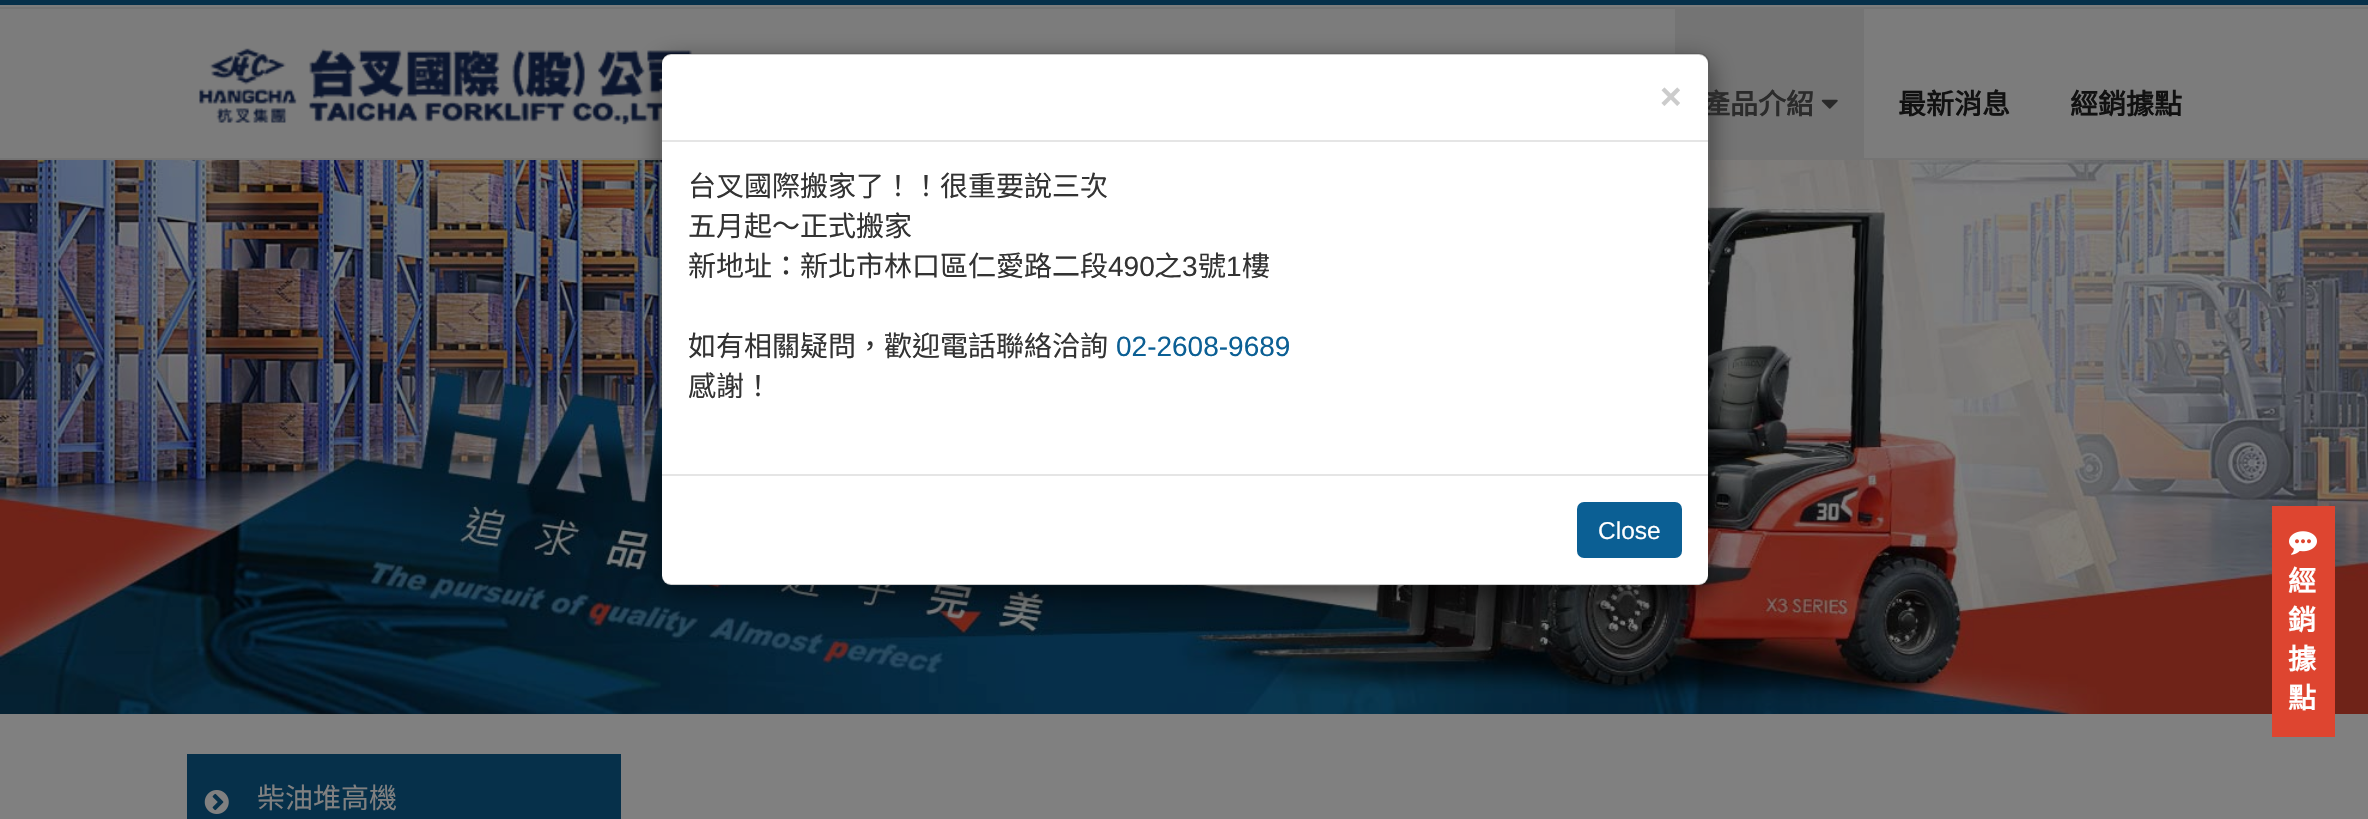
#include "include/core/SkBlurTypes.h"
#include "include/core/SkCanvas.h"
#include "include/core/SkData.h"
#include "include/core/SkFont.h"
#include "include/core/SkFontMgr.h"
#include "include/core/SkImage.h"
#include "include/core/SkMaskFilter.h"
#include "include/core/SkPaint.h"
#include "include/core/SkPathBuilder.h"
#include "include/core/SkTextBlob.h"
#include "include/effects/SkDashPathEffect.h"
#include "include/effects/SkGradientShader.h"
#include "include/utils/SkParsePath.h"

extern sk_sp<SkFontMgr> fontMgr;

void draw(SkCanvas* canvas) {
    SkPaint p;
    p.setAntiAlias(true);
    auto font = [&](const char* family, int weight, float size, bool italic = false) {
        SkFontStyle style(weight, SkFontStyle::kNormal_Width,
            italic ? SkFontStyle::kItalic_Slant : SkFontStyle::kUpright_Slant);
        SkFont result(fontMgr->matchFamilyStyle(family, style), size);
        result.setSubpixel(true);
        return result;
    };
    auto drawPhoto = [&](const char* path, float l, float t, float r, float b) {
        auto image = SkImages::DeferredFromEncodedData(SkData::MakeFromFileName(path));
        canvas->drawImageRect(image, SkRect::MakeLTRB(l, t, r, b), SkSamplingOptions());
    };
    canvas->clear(0xFF808080);
    p.setColor(0xFF7C7C7C);
    canvas->drawRect(SkRect::MakeLTRB(0, 9, 2368, 158), p);
    p.setColor(0xFF747474);
    canvas->drawRect(SkRect::MakeLTRB(0, 158, 2368, 160), p);
    drawPhoto("media/1.png", 199, 48, 692, 125);
    canvas->drawRect(SkRect::MakeLTRB(1675, 9, 1864, 158), p);
    drawPhoto("media/3.png", 0, 160, 2368, 714);
    canvas->save();
    canvas->clipPath(SkPathBuilder(SkPathFillType::kEvenOdd).moveTo(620, 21).lineTo(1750, 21).lineTo(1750, 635).lineTo(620, 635).close().moveTo(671, 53).lineTo(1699, 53).cubicTo(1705, 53, 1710, 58, 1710, 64).lineTo(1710, 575).cubicTo(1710, 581, 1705, 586, 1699, 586).lineTo(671, 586).cubicTo(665, 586, 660, 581, 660, 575).lineTo(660, 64).cubicTo(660, 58, 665, 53, 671, 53).close().detach(), true);
    p.setColor(0x80000000);
    p.setMaskFilter(SkMaskFilter::MakeBlur(kNormal_SkBlurStyle, 13));
    canvas->drawRoundRect(SkRect::MakeLTRB(660, 61, 1710, 595), 11, 11, p);
    p.setMaskFilter(nullptr);
    canvas->restore();
    auto font1 = font("Noto Sans CJK TC", 700, 28);
    p.setColor(0xFF2B2B2B);
    canvas->drawString("產品介紹", 1702, 114, font1, p);
    p.setColor(0xFFFFFFFF);
    canvas->drawRoundRect(SkRect::MakeLTRB(662, 54, 1708, 585), 9, 9, p);
    p.setStyle(SkPaint::kStroke_Style);
    p.setStrokeWidth(2);
    p.setColor(0x33000000);
    canvas->drawRoundRect(SkRect::MakeLTRB(661, 54, 1709, 585), 10, 10, p);
    p.setStyle(SkPaint::kFill_Style);
    p.setColor(0xFFE5E5E5);
    canvas->drawRect(SkRect::MakeLTRB(662, 140, 1708, 142), p);
    auto font2 = font("Liberation Sans", 700, 37);
    p.setColor(0xFFCCCCCC);
    canvas->drawString("×", 1660, 109, font2, p);
    auto font3 = font("Noto Sans CJK TC", 400, 28);
    p.setColor(0xFF333333);
    {
        const struct { const char* s; float x, y; } items[] = {
            {"台叉國際搬家了！！很重要說三次", 688, 196},
            {"五月起～正式搬家", 688, 236},
            {"新地址：新北市林口區仁愛路二段", 688, 276},
        };
        for (auto [s, x, y] : items) {
            canvas->drawString(s, x, y, font3, p);
        }
    }
    auto font4 = font("Liberation Sans", 400, 28);
    canvas->drawString("490", 1108, 276, font4, p);
    canvas->drawString("之", 1154, 276, font3, p);
    canvas->drawString("3", 1182, 276, font4, p);
    canvas->drawString("號", 1198, 276, font3, p);
    canvas->drawString("1", 1226, 276, font4, p);
    canvas->drawString("樓", 1242, 276, font3, p);
    canvas->drawString("如有相關疑問，歡迎電話聯絡洽詢", 688, 356, font3, p);
    p.setColor(0xFF0B5F94);
    canvas->drawString("02-2608-9689", 1116, 356, font4, p);
    p.setColor(0xFF333333);
    canvas->drawString("感謝！", 688, 396, font3, p);
    p.setColor(0xFFE5E5E5);
    canvas->drawRect(SkRect::MakeLTRB(662, 474, 1708, 476), p);
    p.setColor(0xFF0B5F94);
    canvas->drawRoundRect(SkRect::MakeLTRB(1577, 502, 1682, 558), 7, 7, p);
    auto font5 = font("Liberation Sans", 400, 24.5f);
    p.setColor(0xFFFFFFFF);
    canvas->drawString("Close", 1598, 539, font5, p);
    {
        const struct { float l, t, r, b; SkColor color; } items[] = {
            {0, 5, 2368, 7, 0xFF7D7D7D},
            {0, 0, 2368, 5, 0xFF06304A},
            {0, 7, 2368, 9, 0xFF747474},
        };
        for (auto [l, t, r, b, color] : items) {
            p.setColor(color);
            canvas->drawRect(SkRect::MakeLTRB(l, t, r, b), p);
        }
    }
    drawPhoto("media/2.png", 1821, 99, 1838, 109);
    p.setColor(0xFF111111);
    canvas->drawString("最新消息", 1898, 114, font1, p);
    canvas->drawString("經銷據點", 2070, 114, font1, p);
    p.setColor(0xFFDE4530);
    canvas->drawRect(SkRect::MakeLTRB(2272, 506, 2335, 737), p);
    drawPhoto("media/4.png", 2289, 531, 2317, 555);
    p.setColor(0xFFFFFFFF);
    {
        const struct { const char* s; float x, y; } items[] = {
            {"經", 2288, 591},
            {"銷", 2288, 630},
            {"據", 2288, 669},
            {"點", 2288, 708},
        };
        for (auto [s, x, y] : items) {
            canvas->drawString(s, x, y, font1, p);
        }
    }
    p.setColor(0xFF06304A);
    canvas->drawRect(SkRect::MakeLTRB(187, 754, 621, 819), p);
    drawPhoto("media/5.png", 204, 790, 229, 814);
    p.setColor(0xFF808080);
    canvas->drawString("柴油堆高機", 257, 808, font3, p);
}
